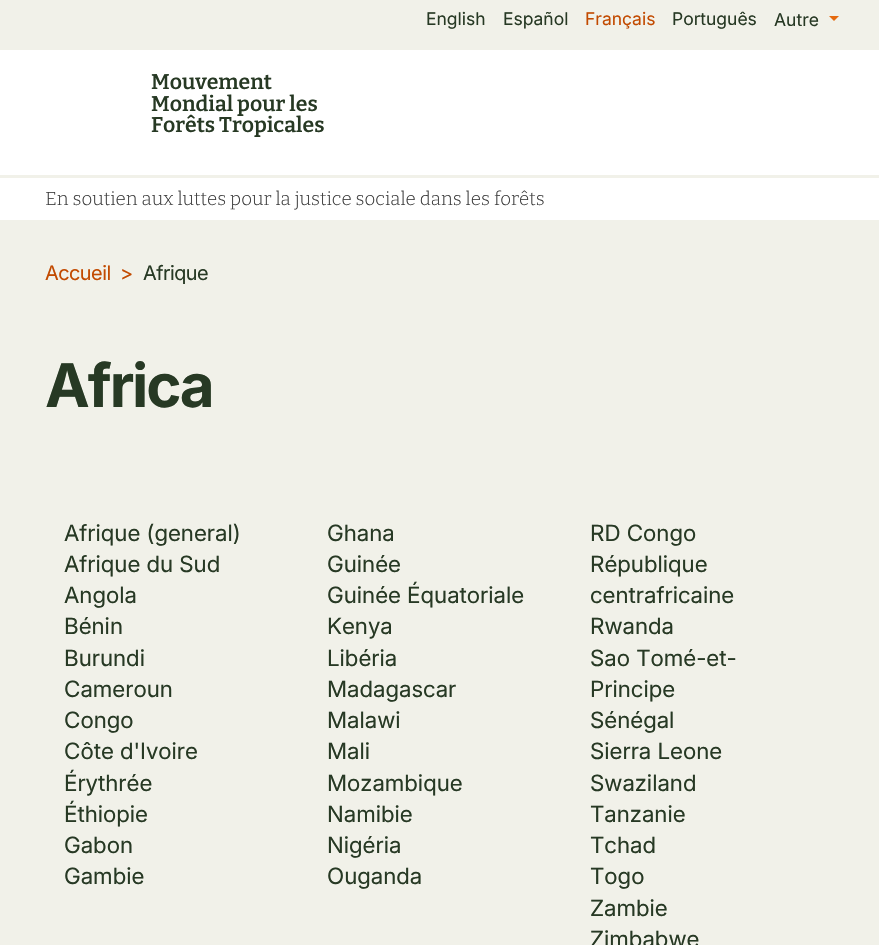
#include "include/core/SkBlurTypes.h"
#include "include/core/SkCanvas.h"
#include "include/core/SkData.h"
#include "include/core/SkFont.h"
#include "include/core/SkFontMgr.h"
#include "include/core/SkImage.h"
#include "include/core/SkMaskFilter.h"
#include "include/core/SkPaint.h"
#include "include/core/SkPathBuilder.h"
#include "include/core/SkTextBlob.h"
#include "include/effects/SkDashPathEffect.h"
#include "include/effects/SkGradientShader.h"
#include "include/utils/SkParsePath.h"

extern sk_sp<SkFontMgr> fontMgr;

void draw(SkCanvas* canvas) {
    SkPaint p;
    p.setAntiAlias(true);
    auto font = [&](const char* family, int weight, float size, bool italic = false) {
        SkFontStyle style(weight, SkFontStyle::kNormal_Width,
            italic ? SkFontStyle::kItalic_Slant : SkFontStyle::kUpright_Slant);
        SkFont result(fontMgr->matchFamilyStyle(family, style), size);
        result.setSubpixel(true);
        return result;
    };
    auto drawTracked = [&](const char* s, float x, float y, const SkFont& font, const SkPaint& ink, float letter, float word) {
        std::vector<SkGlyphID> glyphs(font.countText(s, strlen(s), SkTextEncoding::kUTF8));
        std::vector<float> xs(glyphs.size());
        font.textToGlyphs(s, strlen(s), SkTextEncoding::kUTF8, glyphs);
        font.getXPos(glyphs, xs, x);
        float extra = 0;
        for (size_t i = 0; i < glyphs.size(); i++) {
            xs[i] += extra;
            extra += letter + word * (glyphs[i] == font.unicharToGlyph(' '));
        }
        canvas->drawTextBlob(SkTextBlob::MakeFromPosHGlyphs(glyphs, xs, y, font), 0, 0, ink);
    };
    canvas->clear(0xFFFFFFFF);
    p.setColor(0xFFF1F1E9);
    canvas->drawRect(SkRect::MakeLTRB(0, 0, 879, 50), p);
    auto font1 = font("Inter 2", 400, 17.5f);
    p.setColor(0xFF273924);
    canvas->drawString("English", 426, 25, font1, p);
    canvas->drawString("Español", 503, 25, font1, p);
    p.setColor(0xFFC24A00);
    canvas->drawString("Français", 585, 25, font1, p);
    p.setColor(0xFF273924);
    canvas->drawString("Português", 672, 25, font1, p);
    canvas->drawString("Autre", 774, 26, font1, p);
    p.setColor(0xFFE56A0E);
    canvas->drawPath(SkPathBuilder().moveTo(829, 16).lineTo(839, 16).lineTo(834, 21).close().detach(), p);
    auto font2 = font("Bitter", 600, 21.25f);
    p.setColor(0xFF273924);
    {
        const struct { const char* s; float x, y; } items[] = {
            {"Mouvement", 151, 89},
            {"Mondial pour les", 151, 111},
            {"Forêts Tropicales", 151, 132},
        };
        for (auto [s, x, y] : items) {
            canvas->drawString(s, x, y, font2, p);
        }
    }
    p.setColor(0xFFF1F1E9);
    canvas->drawRect(SkRect::MakeLTRB(0, 175, 879, 178), p);
    auto font3 = font("Bitter", 300, 18.75f);
    p.setColor(0xFF3B3B3B);
    canvas->drawString("En soutien aux luttes pour la justice sociale dans les forêts", 45, 205, font3, p);
    p.setColor(0xFFF1F1E9);
    canvas->drawRect(SkRect::MakeLTRB(0, 220, 879, 945), p);
    auto font4 = font("Inter", 400, 20);
    p.setColor(0xFFC24A00);
    drawTracked("Accueil", 45, 280, font4, p, -0.5f, 0);
    drawTracked(">", 120, 280, font4, p, -0.5f, 0);
    p.setColor(0xFF273924);
    drawTracked("Afrique", 143, 280, font4, p, -0.5f, 0);
    auto font5 = font("Inter", 700, 60);
    drawTracked("Africa", 45, 407, font5, p, -2, 0);
    auto font6 = font("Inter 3", 400, 22.5f);
    {
        const struct { const char* s; float x, y; } items[] = {
            {"Afrique (general)", 64, 541},
            {"Afrique du Sud", 64, 572},
            {"Angola", 64, 603},
            {"Bénin", 64, 634},
            {"Burundi", 64, 666},
            {"Cameroun", 64, 697},
            {"Congo", 64, 728},
            {"Côte d'Ivoire", 64, 759},
            {"Érythrée", 64, 791},
            {"Éthiopie", 64, 822},
            {"Gabon", 64, 853},
            {"Gambie", 64, 884},
            {"Ghana", 327, 541},
            {"Guinée", 327, 572},
            {"Guinée Équatoriale", 327, 603},
            {"Kenya", 327, 634},
            {"Libéria", 327, 666},
            {"Madagascar", 327, 697},
            {"Malawi", 327, 728},
            {"Mali", 327, 759},
            {"Mozambique", 327, 791},
            {"Namibie", 327, 822},
            {"Nigéria", 327, 853},
            {"Ouganda", 327, 884},
            {"RD Congo", 590, 541},
            {"République", 590, 572},
            {"centrafricaine", 590, 603},
            {"Rwanda", 590, 634},
            {"Sao Tomé-et-", 590, 666},
            {"Principe", 590, 697},
            {"Sénégal", 590, 728},
            {"Sierra Leone", 590, 759},
            {"Swaziland", 590, 791},
            {"Tanzanie", 590, 822},
            {"Tchad", 590, 853},
            {"Togo", 590, 884},
            {"Zambie", 590, 916},
            {"Zimbabwe", 590, 947},
        };
        for (auto [s, x, y] : items) {
            canvas->drawString(s, x, y, font6, p);
        }
    }
}
